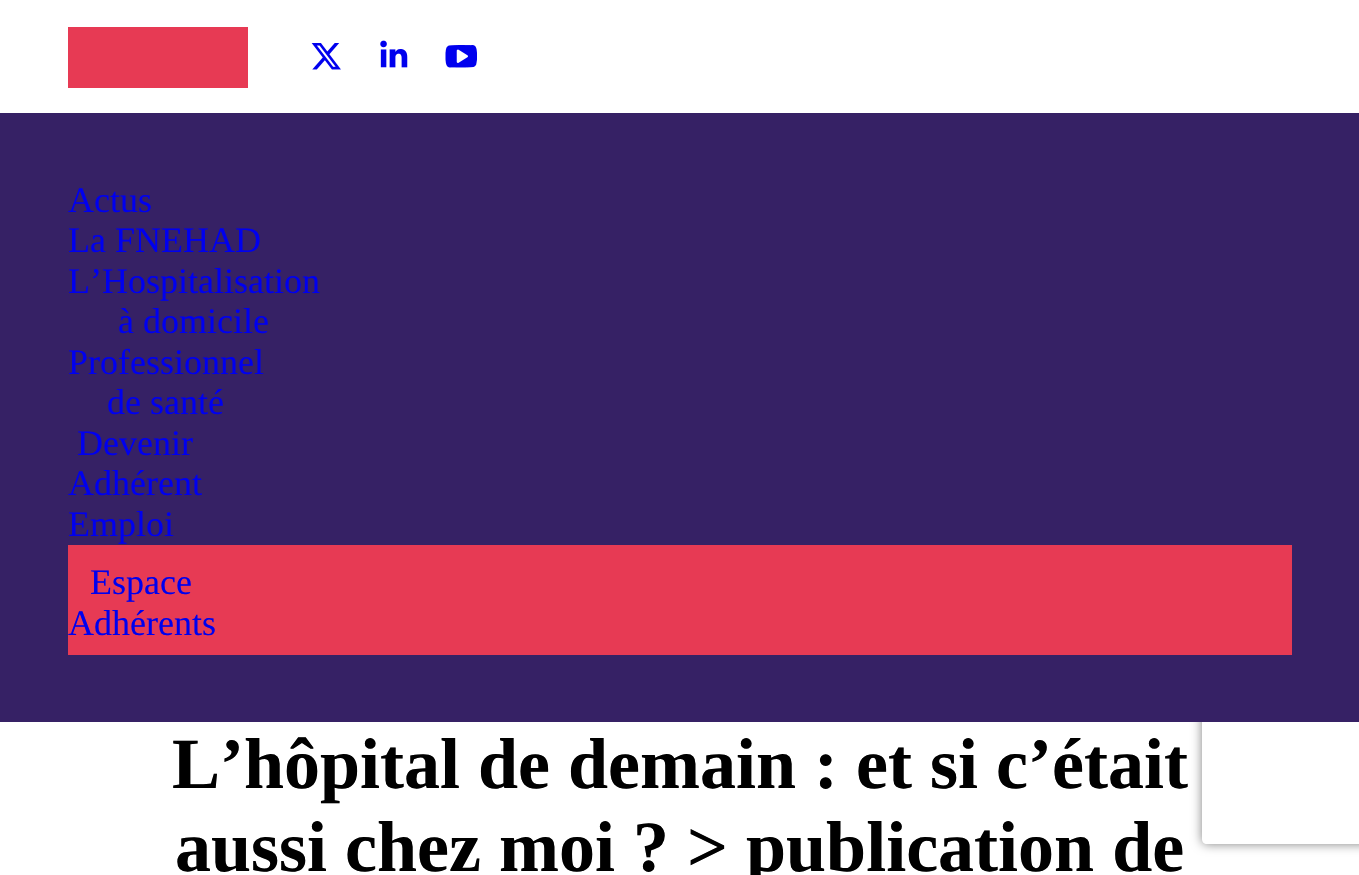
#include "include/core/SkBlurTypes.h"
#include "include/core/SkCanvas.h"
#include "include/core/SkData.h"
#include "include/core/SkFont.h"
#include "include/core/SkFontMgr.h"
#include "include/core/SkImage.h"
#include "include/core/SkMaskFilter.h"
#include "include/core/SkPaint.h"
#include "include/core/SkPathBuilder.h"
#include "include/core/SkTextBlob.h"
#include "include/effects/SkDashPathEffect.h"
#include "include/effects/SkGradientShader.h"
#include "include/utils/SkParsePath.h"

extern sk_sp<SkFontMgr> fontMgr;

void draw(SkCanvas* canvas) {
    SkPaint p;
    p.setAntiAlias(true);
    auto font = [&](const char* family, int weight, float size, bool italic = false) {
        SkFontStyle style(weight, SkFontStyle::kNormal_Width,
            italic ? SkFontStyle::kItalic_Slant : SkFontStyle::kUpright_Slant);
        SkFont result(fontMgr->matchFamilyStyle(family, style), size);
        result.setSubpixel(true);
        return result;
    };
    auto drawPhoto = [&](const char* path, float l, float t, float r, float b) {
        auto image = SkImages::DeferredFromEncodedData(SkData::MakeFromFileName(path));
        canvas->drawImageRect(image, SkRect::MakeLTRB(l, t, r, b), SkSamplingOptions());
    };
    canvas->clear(0xFFFFFFFF);
    p.setColor(0xFFE73A54);
    canvas->drawRect(SkRect::MakeLTRB(68, 27, 248, 88), p);
    drawPhoto("media/1.png", 311, 43, 341, 70);
    drawPhoto("media/2.png", 380, 40, 408, 68);
    drawPhoto("media/3.png", 445, 45, 477, 68);
    canvas->save();
    canvas->clipPath(SkPathBuilder(SkPathFillType::kEvenOdd).moveTo(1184, 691).lineTo(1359, 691).lineTo(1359, 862).lineTo(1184, 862).close().moveTo(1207, 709).lineTo(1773, 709).cubicTo(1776, 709, 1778, 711, 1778, 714).lineTo(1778, 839).cubicTo(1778, 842, 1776, 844, 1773, 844).lineTo(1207, 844).cubicTo(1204, 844, 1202, 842, 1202, 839).lineTo(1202, 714).cubicTo(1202, 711, 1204, 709, 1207, 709).close().detach(), true);
    p.setColor(0xFF808080);
    p.setMaskFilter(SkMaskFilter::MakeBlur(kNormal_SkBlurStyle, 5.5f));
    canvas->drawRoundRect(SkRect::MakeLTRB(1202, 709, 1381, 844), 5, 5, p);
    p.setMaskFilter(nullptr);
    canvas->restore();
    p.setColor(0xFF362165);
    canvas->drawRect(SkRect::MakeLTRB(0, 113, 1359, 722), p);
    auto font1 = font("Liberation Serif", 400, 36);
    p.setColor(0xFF0000EE);
    {
        const struct { const char* s; float x, y; } items[] = {
            {"Actus", 68, 212},
            {"La FNEHAD", 68, 252},
            {"L’Hospitalisation", 68, 293},
            {"à domicile", 118, 333},
            {"Professionnel", 68, 374},
            {"de santé", 107, 414},
            {"Devenir", 77, 455},
            {"Adhérent", 68, 495},
            {"Emploi", 68, 536},
        };
        for (auto [s, x, y] : items) {
            canvas->drawString(s, x, y, font1, p);
        }
    }
    p.setColor(0xFFE73A54);
    canvas->drawRect(SkRect::MakeLTRB(68, 545, 1292, 655), p);
    p.setColor(0xFF0000EE);
    canvas->drawString("Espace", 90, 594, font1, p);
    canvas->drawString("Adhérents", 68, 635, font1, p);
    auto font2 = font("Liberation Serif", 700, 72);
    p.setColor(0xFF000000);
    canvas->drawString("L’hôpital de demain : et si c’était", 172, 788, font2, p);
    canvas->drawString("aussi chez moi ? > publication de", 175, 871, font2, p);
}
